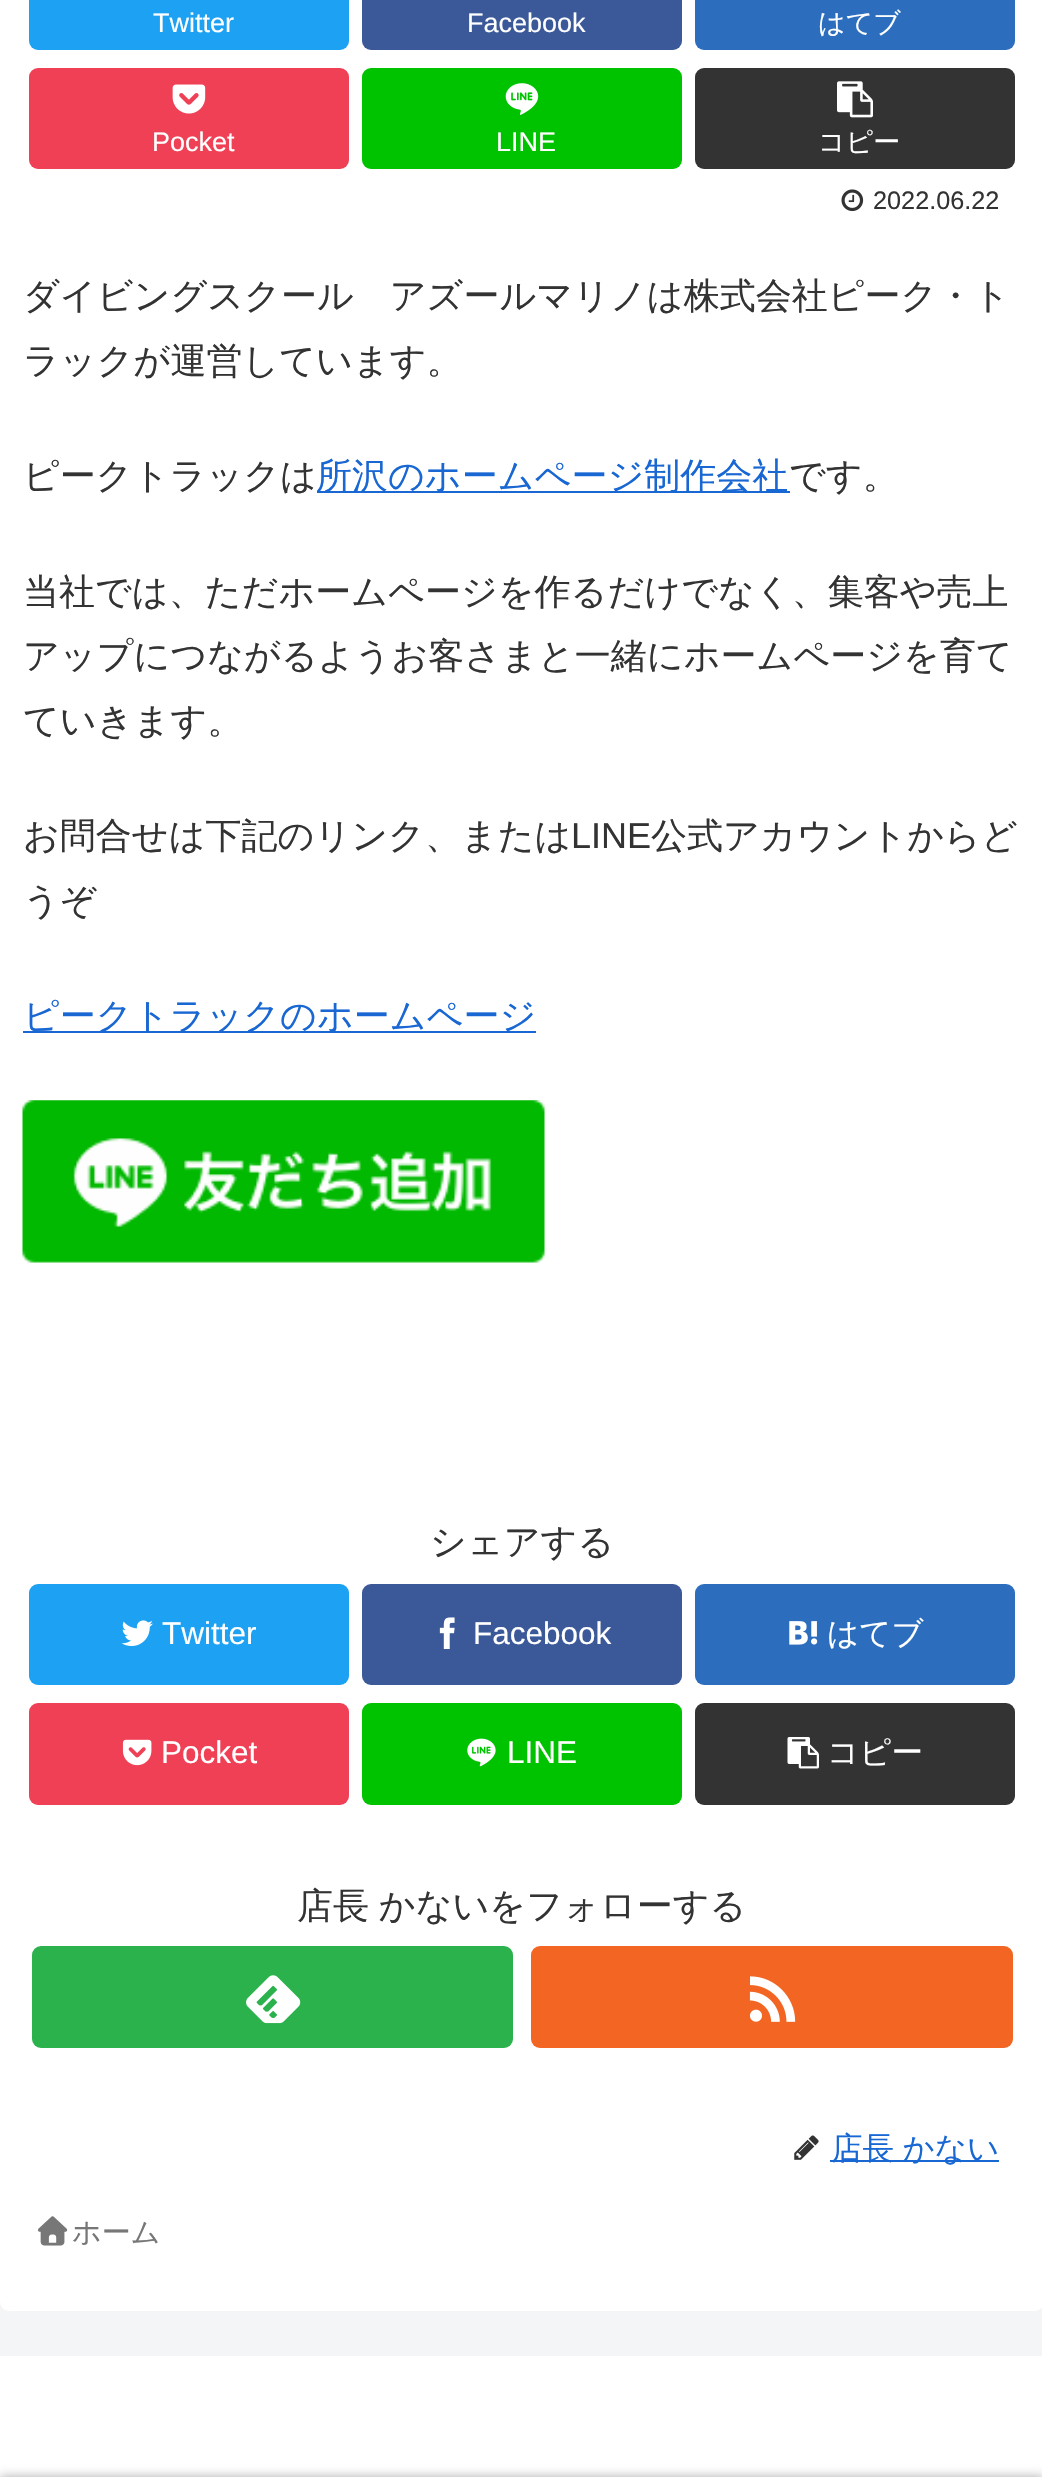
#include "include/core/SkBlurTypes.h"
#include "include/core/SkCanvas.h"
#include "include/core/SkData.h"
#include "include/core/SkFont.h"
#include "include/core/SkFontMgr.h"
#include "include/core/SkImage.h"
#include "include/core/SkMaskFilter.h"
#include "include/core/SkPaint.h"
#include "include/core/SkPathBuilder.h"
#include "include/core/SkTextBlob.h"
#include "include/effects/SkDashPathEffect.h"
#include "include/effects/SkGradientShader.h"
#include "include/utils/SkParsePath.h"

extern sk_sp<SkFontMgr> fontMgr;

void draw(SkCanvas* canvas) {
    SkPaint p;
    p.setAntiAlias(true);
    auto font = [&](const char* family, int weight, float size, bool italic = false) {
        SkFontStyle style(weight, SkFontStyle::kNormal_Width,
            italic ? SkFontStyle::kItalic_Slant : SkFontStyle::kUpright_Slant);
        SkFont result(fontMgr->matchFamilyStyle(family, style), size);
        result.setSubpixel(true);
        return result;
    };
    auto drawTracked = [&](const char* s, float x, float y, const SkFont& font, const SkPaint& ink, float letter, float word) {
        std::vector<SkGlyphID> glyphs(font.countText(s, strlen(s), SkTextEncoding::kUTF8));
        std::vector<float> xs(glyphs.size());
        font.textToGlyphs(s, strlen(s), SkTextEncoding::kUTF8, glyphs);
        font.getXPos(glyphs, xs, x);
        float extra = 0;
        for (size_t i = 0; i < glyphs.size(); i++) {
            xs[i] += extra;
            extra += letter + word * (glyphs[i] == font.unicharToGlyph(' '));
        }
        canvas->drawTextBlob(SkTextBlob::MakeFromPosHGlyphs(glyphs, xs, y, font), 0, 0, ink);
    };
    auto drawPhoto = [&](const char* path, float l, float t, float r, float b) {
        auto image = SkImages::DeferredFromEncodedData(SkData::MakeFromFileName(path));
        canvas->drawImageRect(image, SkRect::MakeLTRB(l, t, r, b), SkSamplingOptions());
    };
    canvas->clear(0xFFF4F5F7);
    p.setColor(0xFFFFFFFF);
    canvas->drawRoundRect(SkRect::MakeLTRB(0, -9, 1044, 2311), 9, 9, p);
    p.setColor(0xFF1DA1F2);
    canvas->drawRoundRect(SkRect::MakeLTRB(29, -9, 349, 50), 9, 9, p);
    auto font1 = font("Liberation Sans", 400, 27);
    p.setColor(0xFFFFFFFF);
    canvas->drawString("Twitter", 153, 32, font1, p);
    p.setColor(0xFF3B5998);
    canvas->drawRoundRect(SkRect::MakeLTRB(362, -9, 682, 50), 9, 9, p);
    p.setColor(0xFFFFFFFF);
    canvas->drawString("Facebook", 467, 32, font1, p);
    p.setColor(0xFF2C6EBD);
    canvas->drawRoundRect(SkRect::MakeLTRB(695, -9, 1015, 50), 9, 9, p);
    auto font2 = font("WenQuanYi Zen Hei", 500, 27);
    p.setColor(0xFFFFFFFF);
    canvas->drawString("はてブ", 818, 32, font2, p);
    p.setColor(0xFFEF4056);
    canvas->drawRoundRect(SkRect::MakeLTRB(29, 68, 349, 169), 9, 9, p);
    drawPhoto("media/1.png", 172, 84, 206, 114);
    p.setColor(0xFFFFFFFF);
    canvas->drawString("Pocket", 152, 151, font1, p);
    p.setColor(0xFF00C300);
    canvas->drawRoundRect(SkRect::MakeLTRB(362, 68, 682, 169), 9, 9, p);
    drawPhoto("media/2.png", 505, 83, 539, 115);
    p.setColor(0xFFFFFFFF);
    canvas->drawString("LINE", 496, 151, font1, p);
    p.setColor(0xFF333333);
    canvas->drawRoundRect(SkRect::MakeLTRB(695, 68, 1015, 169), 9, 9, p);
    drawPhoto("media/3.png", 837, 81, 873, 118);
    p.setColor(0xFFFFFFFF);
    canvas->drawString("コピー", 818, 151, font2, p);
    drawPhoto("media/4.png", 841, 189, 864, 212);
    auto font3 = font("Liberation Sans", 400, 25.25f);
    p.setColor(0xFF333333);
    canvas->drawString("2022.06.22", 873, 209, font3, p);
    auto font4 = font("WenQuanYi Zen Hei", 500, 36);
    {
        const struct { const char* s; float x, y; } items[] = {
            {"ダイビングスクール　アズールマリノは株式会社ピーク・ト", 23, 308},
            {"ラックが運営しています。", 23, 373},
            {"ピークトラックは", 23, 488},
        };
        for (auto [s, x, y] : items) {
            canvas->drawString(s, x, y, font4, p);
        }
    }
    p.setColor(0xFF1967D2);
    canvas->drawRect(SkRect::MakeLTRB(317, 491, 790, 493), p);
    canvas->drawString("所沢のホームページ制作会社", 316, 488, font4, p);
    p.setColor(0xFF333333);
    {
        const struct { const char* s; float x, y; } items[] = {
            {"です。", 789, 488},
            {"当社では、ただホームページを作るだけでなく、集客や売上", 23, 604},
            {"アップにつながるようお客さまと一緒にホームページを育て", 23, 668},
            {"ていきます。", 23, 733},
            {"お問合せは下記のリンク、または", 23, 848},
        };
        for (auto [s, x, y] : items) {
            canvas->drawString(s, x, y, font4, p);
        }
    }
    auto font5 = font("Liberation Sans", 400, 36);
    canvas->drawString("LINE", 571, 848, font5, p);
    canvas->drawString("公式アカウントからど", 651, 848, font4, p);
    canvas->drawString("うぞ", 23, 913, font4, p);
    p.setColor(0xFF1967D2);
    canvas->drawRect(SkRect::MakeLTRB(23, 1031, 536, 1033), p);
    canvas->drawString("ピークトラックのホームページ", 23, 1028, font4, p);
    drawPhoto("media/5.png", 22, 1100, 545, 1263);
    p.setColor(0xFF333333);
    canvas->drawString("シェアする", 430, 1554, font4, p);
    p.setColor(0xFF1DA1F2);
    canvas->drawRoundRect(SkRect::MakeLTRB(29, 1584, 349, 1685), 9, 9, p);
    drawPhoto("media/6.png", 121, 1620, 153, 1646);
    auto font6 = font("Liberation Sans", 400, 31.5f);
    p.setColor(0xFFFFFFFF);
    canvas->drawString("Twitter", 162, 1644, font6, p);
    p.setColor(0xFF3B5998);
    canvas->drawRoundRect(SkRect::MakeLTRB(362, 1584, 682, 1685), 9, 9, p);
    drawPhoto("media/7.png", 439, 1617, 455, 1649);
    p.setColor(0xFFFFFFFF);
    canvas->drawString("Facebook", 473, 1644, font6, p);
    p.setColor(0xFF2C6EBD);
    canvas->drawRoundRect(SkRect::MakeLTRB(695, 1584, 1015, 1685), 9, 9, p);
    drawPhoto("media/8.png", 789, 1621, 818, 1645);
    auto font7 = font("WenQuanYi Zen Hei", 500, 31.5f);
    p.setColor(0xFFFFFFFF);
    canvas->drawString("はてブ", 827, 1644, font7, p);
    p.setColor(0xFFEF4056);
    canvas->drawRoundRect(SkRect::MakeLTRB(29, 1703, 349, 1805), 9, 9, p);
    drawPhoto("media/9.png", 122, 1739, 152, 1766);
    p.setColor(0xFFFFFFFF);
    canvas->drawString("Pocket", 161, 1763, font6, p);
    p.setColor(0xFF00C300);
    canvas->drawRoundRect(SkRect::MakeLTRB(362, 1703, 682, 1805), 9, 9, p);
    drawPhoto("media/10.png", 467, 1738, 496, 1767);
    p.setColor(0xFFFFFFFF);
    canvas->drawString("LINE", 507, 1763, font6, p);
    p.setColor(0xFF333333);
    canvas->drawRoundRect(SkRect::MakeLTRB(695, 1703, 1015, 1805), 9, 9, p);
    drawPhoto("media/11.png", 787, 1737, 819, 1769);
    p.setColor(0xFFFFFFFF);
    canvas->drawString("コピー", 827, 1763, font7, p);
    p.setColor(0xFF333333);
    drawTracked("店長 かないをフォローする", 297, 1918, font4, p, 0, -1);
    p.setColor(0xFF2BB24C);
    canvas->drawRoundRect(SkRect::MakeLTRB(32, 1946, 513, 2048), 9, 9, p);
    drawPhoto("media/12.png", 246, 1975, 301, 2024);
    p.setColor(0xFFF26522);
    canvas->drawRoundRect(SkRect::MakeLTRB(531, 1946, 1013, 2048), 9, 9, p);
    drawPhoto("media/13.png", 749, 1976, 796, 2022);
    drawPhoto("media/14.png", 794, 2135, 819, 2160);
    p.setColor(0xFF1967D2);
    canvas->drawRect(SkRect::MakeLTRB(830, 2160, 999, 2162), p);
    drawTracked("店長 かない", 831, 2159, font7, p, 0, -1);
    drawPhoto("media/15.png", 38, 2216, 68, 2246);
    auto font8 = font("WenQuanYi Zen Hei", 500, 29);
    p.setColor(0xFF777777);
    canvas->drawString("ホーム", 72, 2242, font8, p);
    p.setColor(0xFFFFFFFF);
    canvas->drawRect(SkRect::MakeLTRB(0, 2356, 1042, 2477), p);
    p.setColor(0xFFA9A9A9);
    p.setMaskFilter(SkMaskFilter::MakeBlur(kNormal_SkBlurStyle, 5.5f));
    canvas->drawRect(SkRect::MakeLTRB(0, 2477, 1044, 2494), p);
    p.setMaskFilter(nullptr);
}
